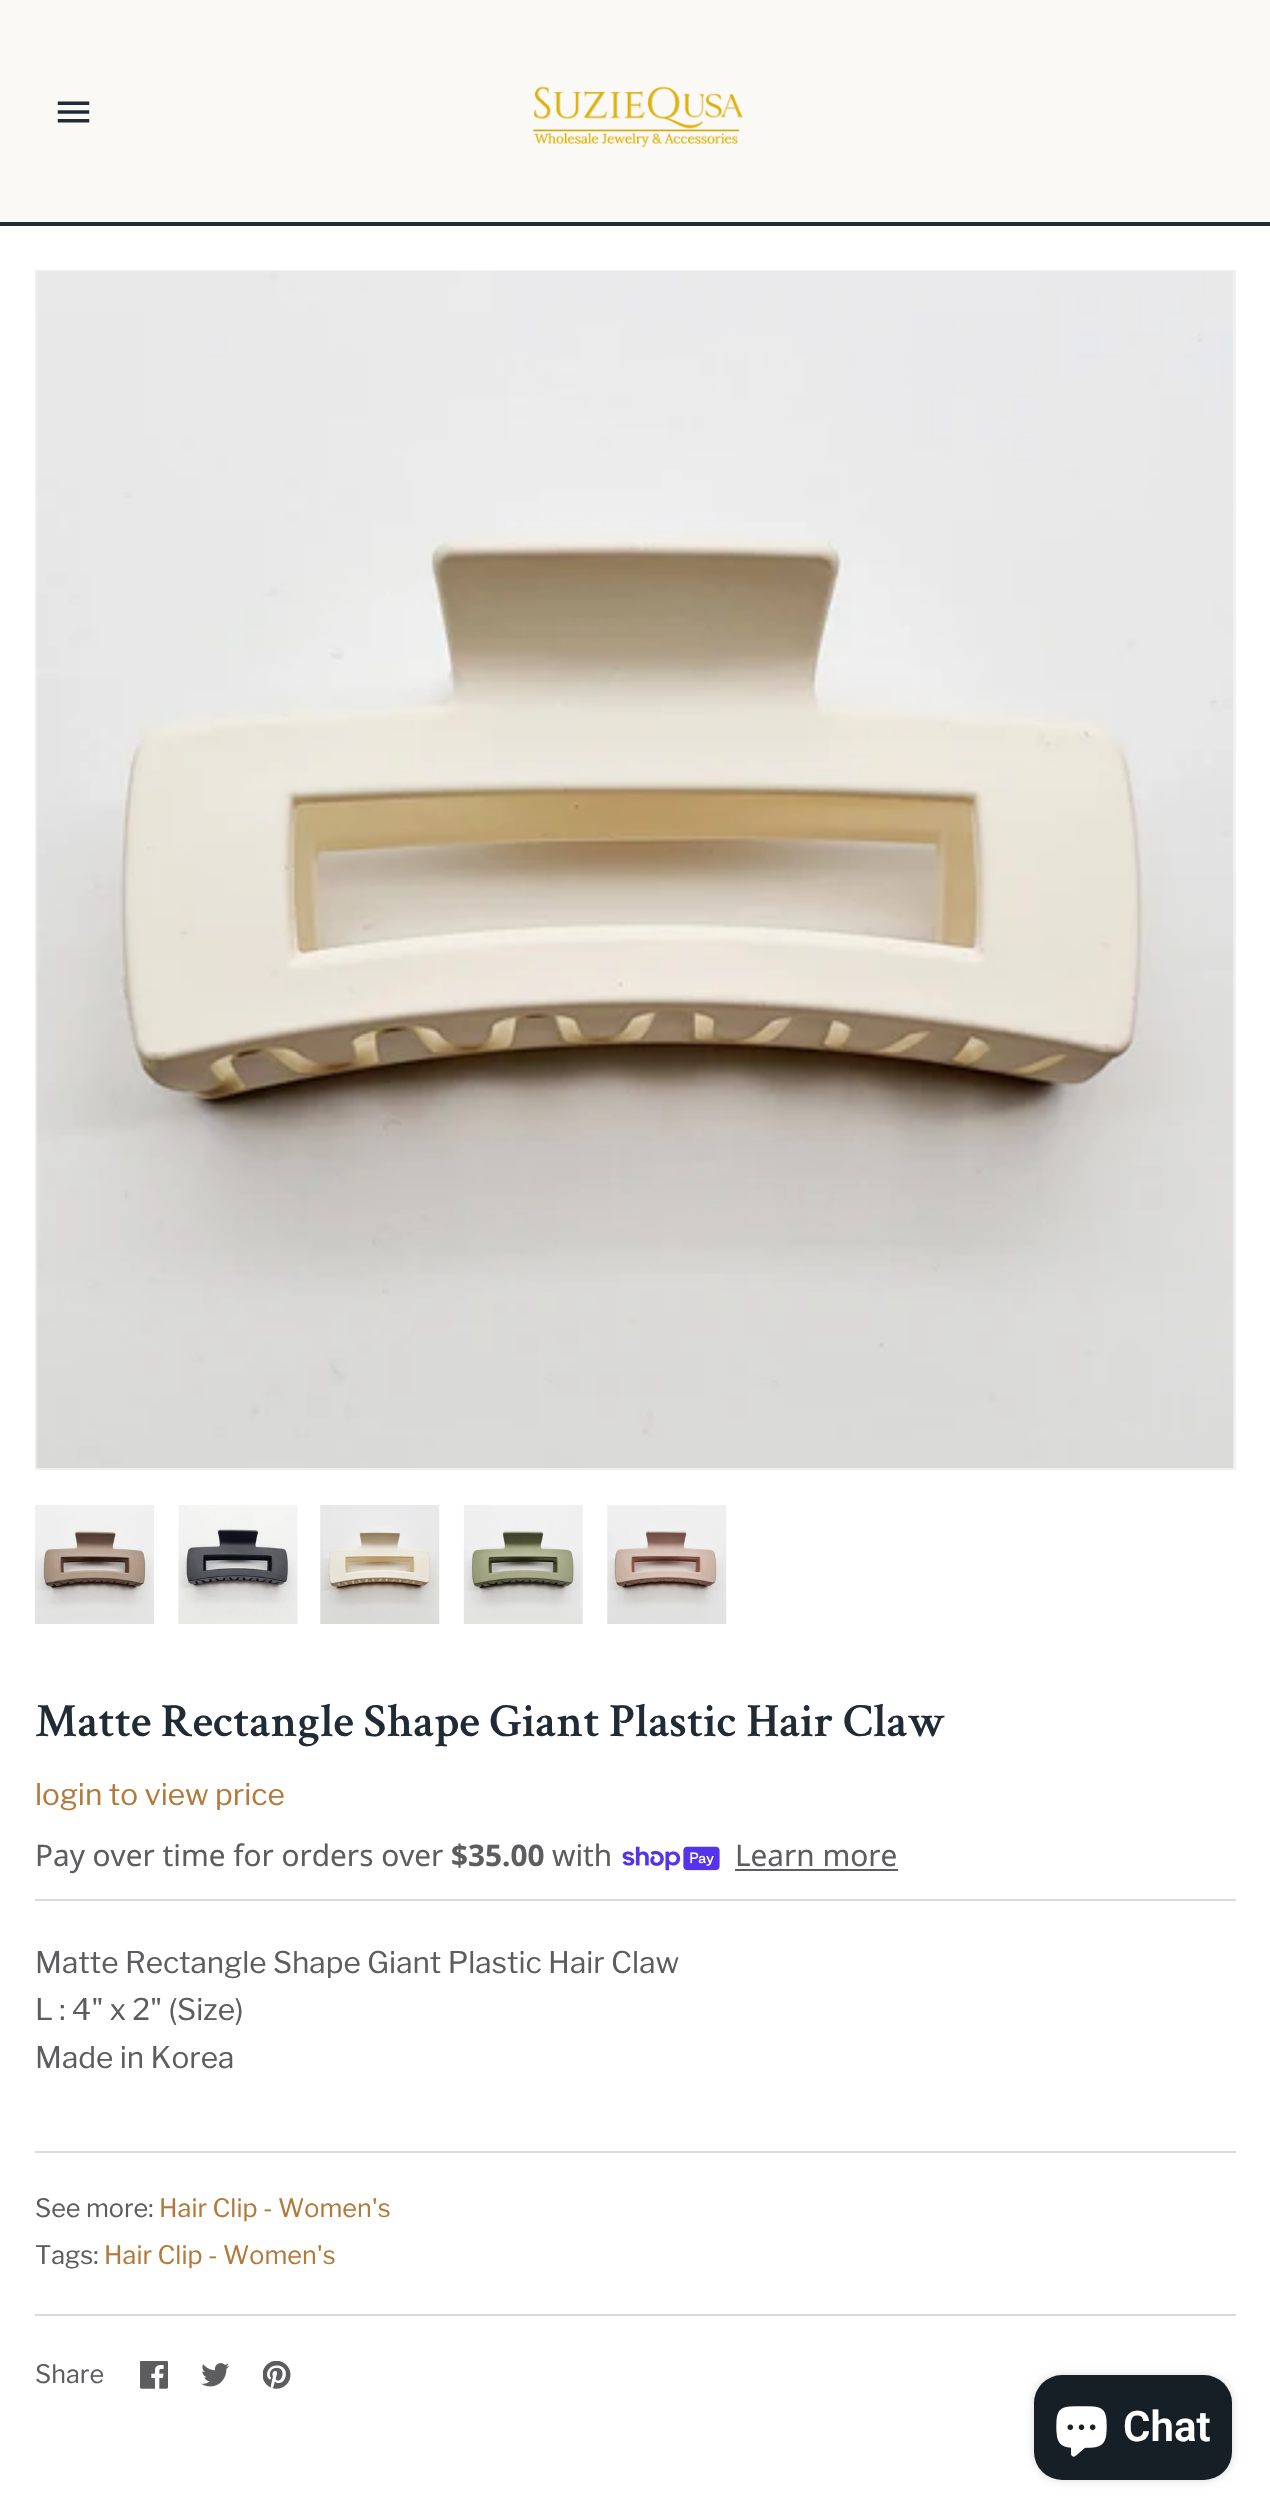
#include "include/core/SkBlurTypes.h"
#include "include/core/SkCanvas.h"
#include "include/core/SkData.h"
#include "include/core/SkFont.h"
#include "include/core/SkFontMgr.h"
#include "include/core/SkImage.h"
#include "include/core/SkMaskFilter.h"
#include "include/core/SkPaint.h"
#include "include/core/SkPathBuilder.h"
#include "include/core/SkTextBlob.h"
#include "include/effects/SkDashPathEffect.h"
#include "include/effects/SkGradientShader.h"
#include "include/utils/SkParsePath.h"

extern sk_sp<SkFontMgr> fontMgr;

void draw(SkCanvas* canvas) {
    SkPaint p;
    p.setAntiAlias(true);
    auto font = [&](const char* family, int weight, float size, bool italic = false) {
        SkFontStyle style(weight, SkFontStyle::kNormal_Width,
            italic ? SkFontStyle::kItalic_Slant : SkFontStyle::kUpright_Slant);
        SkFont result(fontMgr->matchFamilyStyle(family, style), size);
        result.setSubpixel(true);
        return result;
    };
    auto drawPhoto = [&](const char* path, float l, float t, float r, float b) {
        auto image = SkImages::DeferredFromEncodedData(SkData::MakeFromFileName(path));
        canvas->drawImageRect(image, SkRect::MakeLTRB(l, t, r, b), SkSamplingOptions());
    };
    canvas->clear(0xFFFFFFFF);
    p.setColor(0xFFFAF9F5);
    canvas->drawRect(SkRect::MakeLTRB(0, 0, 1270, 222), p);
    drawPhoto("media/1.png", 57, 101, 90, 123);
    drawPhoto("media/2.png", 533, 86, 744, 148);
    p.setColor(0xFF212B36);
    canvas->drawRect(SkRect::MakeLTRB(0, 222, 1270, 226), p);
    p.setStyle(SkPaint::kStroke_Style);
    p.setStrokeWidth(2);
    p.setColor(0xFFF1F0EF);
    canvas->drawRect(SkRect::MakeLTRB(36, 271, 1235, 1469), p);
    drawPhoto("media/3.png", 36, 271, 1234, 1468);
    drawPhoto("media/4.png", 35, 1505, 154, 1624);
    drawPhoto("media/5.png", 178, 1505, 298, 1624);
    drawPhoto("media/6.png", 320, 1505, 440, 1624);
    drawPhoto("media/7.png", 463, 1505, 583, 1624);
    drawPhoto("media/8.png", 607, 1505, 727, 1624);
    auto font1 = font("Crimson Text", 600, 47.6f);
    p.setStyle(SkPaint::kFill_Style);
    p.setColor(0xFF212B36);
    canvas->drawString("Matte Rectangle Shape Giant Plastic Hair Claw", 35, 1736, font1, p);
    auto font2 = font("Libre Franklin", 400, 29.75f);
    p.setColor(0xFFB3793B);
    canvas->drawString("login to view price", 35, 1805, font2, p);
    auto font3 = font("Noto Sans", 400, 29.75f);
    p.setColor(0xFF5D5D60);
    canvas->drawString("Pay over time for orders over", 35, 1866, font3, p);
    auto font4 = font("Noto Sans", 700, 29.75f);
    canvas->drawString("$35.00", 451, 1866, font4, p);
    canvas->drawString("with", 552, 1866, font3, p);
    drawPhoto("media/9.png", 622, 1846, 720, 1871);
    canvas->drawString("Learn more", 735, 1866, font3, p);
    canvas->drawRect(SkRect::MakeLTRB(735, 1869, 898, 1871), p);
    p.setColor(0xFFDBDAD7);
    canvas->drawRect(SkRect::MakeLTRB(35, 1899, 1236, 1901), p);
    p.setColor(0xFF5D5D60);
    {
        const struct { const char* s; float x, y; } items[] = {
            {"Matte Rectangle Shape Giant Plastic Hair Claw", 35, 1973},
            {"L : 4\" x 2\" (Size)", 35, 2020},
            {"Made in Korea", 35, 2068},
        };
        for (auto [s, x, y] : items) {
            canvas->drawString(s, x, y, font2, p);
        }
    }
    p.setColor(0xFFDBDAD7);
    canvas->drawRect(SkRect::MakeLTRB(35, 2151, 1236, 2153), p);
    auto font5 = font("Libre Franklin", 400, 25.25f);
    p.setColor(0xFF5D5D60);
    canvas->drawString("See more:", 35, 2217, font5, p);
    p.setColor(0xFFB3793B);
    canvas->drawString("Hair Clip - Women's", 159, 2217, font5, p);
    p.setColor(0xFF5D5D60);
    canvas->drawString("Tags:", 35, 2264, font5, p);
    p.setColor(0xFFB3793B);
    canvas->drawString("Hair Clip - Women's", 104, 2264, font5, p);
    p.setColor(0xFFDBDAD7);
    canvas->drawRect(SkRect::MakeLTRB(35, 2314, 1236, 2316), p);
    p.setColor(0xFF5D5D60);
    canvas->drawString("Share", 35, 2383, font5, p);
    drawPhoto("media/10.png", 140, 2361, 168, 2389);
    drawPhoto("media/11.png", 201, 2363, 229, 2387);
    drawPhoto("media/12.png", 263, 2361, 291, 2389);
    p.setColor(0x26000000);
    p.setMaskFilter(SkMaskFilter::MakeBlur(kNormal_SkBlurStyle, 4.5f));
    canvas->drawRoundRect(SkRect::MakeLTRB(1034, 2375, 1232, 2480), 28, 28, p);
    p.setMaskFilter(nullptr);
    p.setColor(0xFF161E26);
    canvas->drawRoundRect(SkRect::MakeLTRB(1034, 2375, 1232, 2480), 28, 28, p);
    drawPhoto("media/13.png", 1056, 2406, 1107, 2457);
    auto font6 = font("Roboto", 600, 42);
    p.setColor(0xFFFFFFFF);
    canvas->drawString("Chat", 1123, 2441, font6, p);
}
